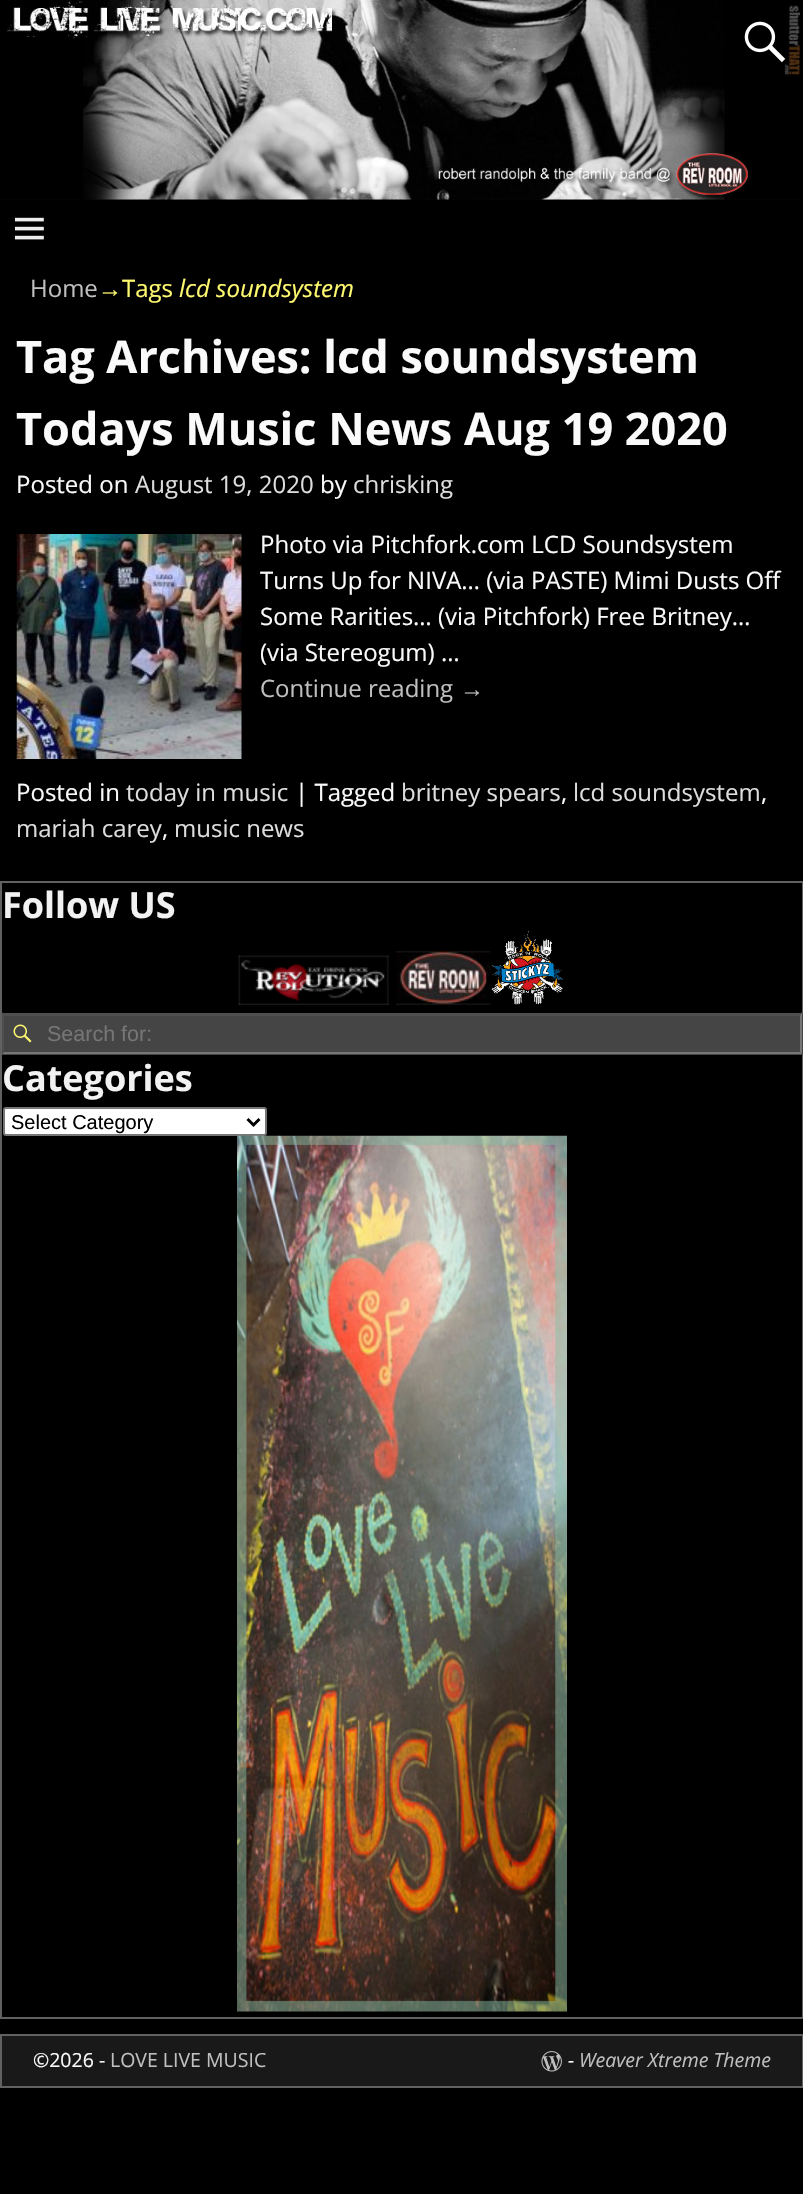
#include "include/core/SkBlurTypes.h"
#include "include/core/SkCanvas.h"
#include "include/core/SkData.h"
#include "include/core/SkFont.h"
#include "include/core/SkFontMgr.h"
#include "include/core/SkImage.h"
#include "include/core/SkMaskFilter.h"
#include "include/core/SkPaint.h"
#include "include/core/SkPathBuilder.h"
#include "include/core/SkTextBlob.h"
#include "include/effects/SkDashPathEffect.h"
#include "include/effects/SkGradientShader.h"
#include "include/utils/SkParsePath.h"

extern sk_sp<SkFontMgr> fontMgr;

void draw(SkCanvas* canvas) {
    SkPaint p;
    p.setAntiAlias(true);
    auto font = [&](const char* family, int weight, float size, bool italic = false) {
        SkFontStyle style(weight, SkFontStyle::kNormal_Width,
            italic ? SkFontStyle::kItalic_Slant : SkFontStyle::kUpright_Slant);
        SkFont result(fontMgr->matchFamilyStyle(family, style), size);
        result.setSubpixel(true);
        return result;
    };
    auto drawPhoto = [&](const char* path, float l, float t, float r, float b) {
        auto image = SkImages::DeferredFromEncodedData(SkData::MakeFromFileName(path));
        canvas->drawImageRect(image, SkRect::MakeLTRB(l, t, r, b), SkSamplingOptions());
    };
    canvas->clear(0xFF000000);
    p.setColor(0xFF050505);
    canvas->drawRect(SkRect::MakeLTRB(0, 199, 803, 200), p);
    drawPhoto("media/1.png", 0, 0, 803, 200);
    drawPhoto("media/2.png", 744, 21, 786, 63);
    drawPhoto("media/3.png", 15, 217, 44, 240);
    auto font1 = font("Open Sans", 400, 24);
    p.setColor(0xFFBFBFBF);
    canvas->drawString("Home", 30, 297, font1, p);
    auto font2 = font("Liberation Sans", 400, 24);
    p.setColor(0xFFFFFA70);
    canvas->drawString("→", 98, 297, font2, p);
    canvas->drawString("Tags", 122, 297, font1, p);
    auto font3 = font("Open Sans", 400, 24, true);
    canvas->drawString("lcd soundsystem", 179, 297, font3, p);
    auto font4 = font("Open Sans", 700, 45);
    p.setColor(0xFFFAFAFA);
    canvas->drawString("Tag Archives: lcd soundsystem", 16, 373, font4, p);
    canvas->drawString("Todays Music News Aug 19 2020", 16, 445, font4, p);
    canvas->drawString("Posted on", 16, 493, font1, p);
    p.setColor(0xFFDDDDDD);
    canvas->drawString("August 19, 2020", 135, 493, font1, p);
    p.setColor(0xFFFAFAFA);
    canvas->drawString("by", 320, 493, font1, p);
    p.setColor(0xFFDDDDDD);
    canvas->drawString("chrisking", 353, 493, font1, p);
    drawPhoto("media/4.png", 16, 534, 242, 759);
    p.setColor(0xFFFAFAFA);
    {
        const struct { const char* s; float x, y; } items[] = {
            {"Photo via Pitchfork.com LCD Soundsystem", 260, 553},
            {"Turns Up for NIVA… (via PASTE) Mimi Dusts Off", 260, 589},
            {"Some Rarities… (via Pitchfork) Free Britney…", 260, 625},
            {"(via Stereogum) …", 260, 661},
        };
        for (auto [s, x, y] : items) {
            canvas->drawString(s, x, y, font1, p);
        }
    }
    p.setColor(0xFFBFBFBF);
    canvas->drawString("Continue reading", 260, 697, font1, p);
    canvas->drawString("→", 460, 697, font2, p);
    p.setColor(0xFFFAFAFA);
    canvas->drawString("Posted in", 16, 801, font1, p);
    p.setColor(0xFFDDDDDD);
    canvas->drawString("today in music", 126, 801, font1, p);
    p.setColor(0xFFFAFAFA);
    canvas->drawString("| Tagged", 295, 801, font1, p);
    p.setColor(0xFFDDDDDD);
    canvas->drawString("britney spears", 401, 801, font1, p);
    p.setColor(0xFFFAFAFA);
    canvas->drawString(",", 561, 801, font1, p);
    p.setColor(0xFFDDDDDD);
    canvas->drawString("lcd soundsystem", 573, 801, font1, p);
    p.setColor(0xFFFAFAFA);
    canvas->drawString(",", 761, 801, font1, p);
    p.setColor(0xFFDDDDDD);
    canvas->drawString("mariah carey", 16, 837, font1, p);
    p.setColor(0xFFFAFAFA);
    canvas->drawString(",", 162, 837, font1, p);
    p.setColor(0xFFDDDDDD);
    canvas->drawString("music news", 174, 837, font1, p);
    p.setStyle(SkPaint::kStroke_Style);
    p.setStrokeWidth(2);
    p.setColor(0xFF616161);
    canvas->drawRect(SkRect::MakeLTRB(1, 882, 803, 2018), p);
    auto font5 = font("Open Sans", 700, 36);
    p.setStyle(SkPaint::kFill_Style);
    p.setColor(0xFFF2F2F2);
    canvas->drawString("Follow US", 2, 918, font5, p);
    drawPhoto("media/5.png", 238, 955, 389, 1005);
    drawPhoto("media/6.png", 396, 951, 491, 1005);
    drawPhoto("media/7.png", 491, 931, 563, 1005);
    p.setColor(0xFF454545);
    canvas->drawRect(SkRect::MakeLTRB(2, 1013, 803, 1055), p);
    drawPhoto("media/8.png", 13, 1024, 32, 1043);
    canvas->save();
    canvas->clipRect(SkRect::MakeLTRB(2, 1013, 803, 1055));
    p.setColor(0xFF4F4F4F);
    canvas->drawPath(SkPathBuilder().moveTo(2, 1012).lineTo(802, 1012).lineTo(800, 1016).lineTo(4, 1016).close().detach(), p);
    canvas->restore();
    p.setColor(0xFF767676);
    canvas->drawPath(SkPathBuilder().moveTo(802, 1012).lineTo(802, 1054).lineTo(800, 1052).lineTo(800, 1016).close().detach(), p);
    canvas->drawPath(SkPathBuilder().moveTo(802, 1054).lineTo(2, 1054).lineTo(4, 1052).lineTo(800, 1052).close().detach(), p);
    p.setColor(0xFF4F4F4F);
    canvas->drawPath(SkPathBuilder().moveTo(2, 1054).lineTo(2, 1012).lineTo(4, 1016).lineTo(4, 1052).close().detach(), p);
    auto font6 = font("Liberation Sans", 400, 21.5f);
    p.setColor(0xFF757575);
    canvas->drawString("Search for:", 47, 1041, font6, p);
    p.setColor(0xFFF2F2F2);
    canvas->drawString("Categories", 2, 1091, font5, p);
    p.setColor(0xFFFFFFFF);
    canvas->drawRoundRect(SkRect::MakeLTRB(4, 1108, 266, 1135), 2, 2, p);
    p.setStyle(SkPaint::kStroke_Style);
    p.setColor(0xFF767676);
    canvas->drawRoundRect(SkRect::MakeLTRB(4, 1108, 266, 1135), 2, 2, p);
    p.setStrokeWidth(3);
    p.setColor(0xFF000000);
    canvas->drawPath(SkPathBuilder().moveTo(247.5f, 1119).lineTo(253.5f, 1125).lineTo(259.5f, 1119).detach(), p);
    auto font7 = font("Liberation Sans", 400, 20);
    p.setStyle(SkPaint::kFill_Style);
    canvas->drawString("Select Category", 11, 1129, font7, p);
    drawPhoto("media/9.png", 237, 1135, 567, 2012);
    p.setColor(0xFF191919);
    canvas->drawRect(SkRect::MakeLTRB(1, 2035, 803, 2087), p);
    p.setStyle(SkPaint::kStroke_Style);
    p.setStrokeWidth(2);
    p.setColor(0xFF616161);
    canvas->drawRect(SkRect::MakeLTRB(1, 2035, 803, 2087), p);
    auto font8 = font("Open Sans", 400, 19.5f);
    p.setStyle(SkPaint::kFill_Style);
    p.setColor(0xFFFAFAFA);
    canvas->drawString("©2026 -", 33, 2067, font8, p);
    p.setColor(0xFFBFBFBF);
    canvas->drawString("LOVE LIVE MUSIC", 110, 2067, font8, p);
    drawPhoto("media/10.png", 541, 2051, 562, 2072);
    auto font9 = font("Open Sans", 400, 19.5f, true);
    p.setColor(0xFFFAFAFA);
    canvas->drawString("-", 568, 2067, font9, p);
    p.setColor(0xFFBFBFBF);
    canvas->drawString("Weaver Xtreme Theme", 579, 2067, font9, p);
}
